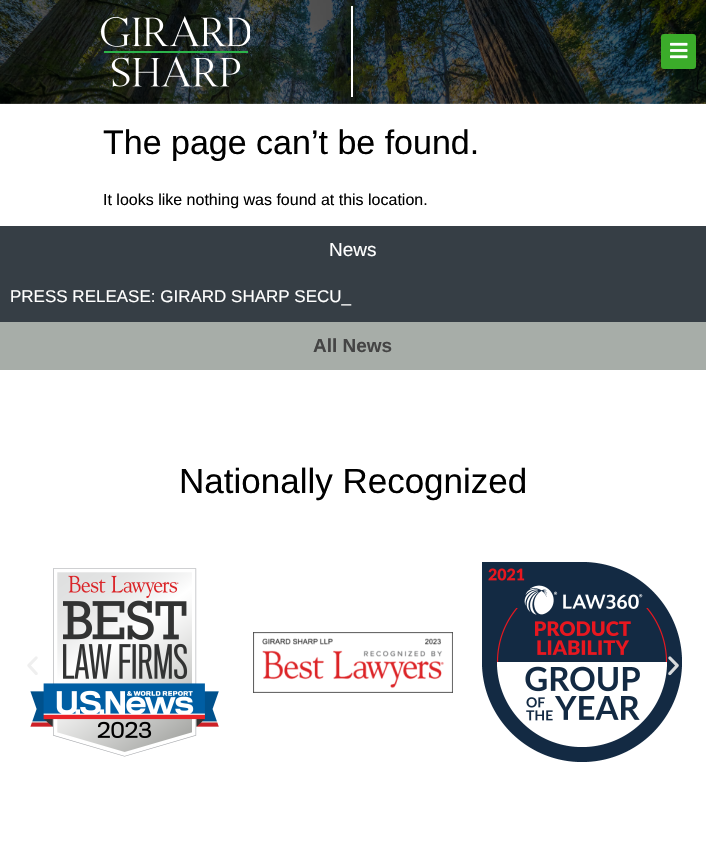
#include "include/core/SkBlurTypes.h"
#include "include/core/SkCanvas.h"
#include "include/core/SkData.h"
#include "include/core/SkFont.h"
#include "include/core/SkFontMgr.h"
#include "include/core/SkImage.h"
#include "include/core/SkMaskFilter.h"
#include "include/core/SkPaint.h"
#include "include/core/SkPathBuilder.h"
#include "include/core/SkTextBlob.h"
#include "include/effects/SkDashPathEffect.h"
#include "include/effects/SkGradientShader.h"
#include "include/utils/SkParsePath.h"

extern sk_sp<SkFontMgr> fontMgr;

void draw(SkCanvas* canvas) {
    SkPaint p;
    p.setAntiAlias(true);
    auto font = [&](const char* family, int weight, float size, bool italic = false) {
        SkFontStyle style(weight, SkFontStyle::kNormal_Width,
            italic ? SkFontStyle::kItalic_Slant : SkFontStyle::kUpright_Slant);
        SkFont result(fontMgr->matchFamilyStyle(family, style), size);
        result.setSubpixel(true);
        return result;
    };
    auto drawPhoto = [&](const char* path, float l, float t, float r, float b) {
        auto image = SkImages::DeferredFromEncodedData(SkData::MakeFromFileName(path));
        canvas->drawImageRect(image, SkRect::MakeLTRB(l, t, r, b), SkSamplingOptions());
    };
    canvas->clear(0xFFFFFFFF);
    drawPhoto("media/1.png", 0, 0, 706, 104);
    p.setColor(0xFFFFFFFF);
    canvas->drawRect(SkRect::MakeLTRB(351, 6, 353, 97), p);
    drawPhoto("media/2.png", 101, 16, 250, 87);
    p.setColor(0xFF3BAC2A);
    canvas->drawRoundRect(SkRect::MakeLTRB(661, 34, 696, 69), 3, 3, p);
    drawPhoto("media/3.png", 670, 42, 688, 59);
    auto font1 = font("Liberation Sans", 400, 34);
    p.setColor(0xFF000000);
    canvas->drawString("The page can’t be found.", 103, 154, font1, p);
    auto font2 = font("Liberation Sans", 400, 16);
    canvas->drawString("It looks like nothing was found at this location.", 103, 205, font2, p);
    p.setColor(0xFFA7ADA8);
    canvas->drawRect(SkRect::MakeLTRB(0, 322, 706, 370), p);
    p.setColor(0xFF363E45);
    canvas->drawRect(SkRect::MakeLTRB(0, 226, 706, 322), p);
    auto font3 = font("Liberation Sans", 400, 19);
    p.setColor(0xFFFFFFFF);
    canvas->drawString("News", 329, 256, font3, p);
    auto font4 = font("Liberation Sans", 400, 17);
    canvas->drawString("PRESS RELEASE: GIRARD SHARP SECU_", 10, 302, font4, p);
    auto font5 = font("Liberation Sans", 700, 19);
    p.setColor(0xFF444444);
    canvas->drawString("All News", 313, 352, font5, p);
    auto font6 = font("Liberation Sans", 400, 35);
    p.setColor(0xFF000000);
    canvas->drawString("Nationally Recognized", 179, 493, font6, p);
    drawPhoto("media/4.png", 30, 568, 219, 757);
    drawPhoto("media/5.png", 253, 632, 453, 693);
    drawPhoto("media/6.png", 482, 562, 682, 762);
    drawPhoto("media/7.png", 27, 656, 38, 675);
    drawPhoto("media/8.png", 668, 656, 679, 676);
}
